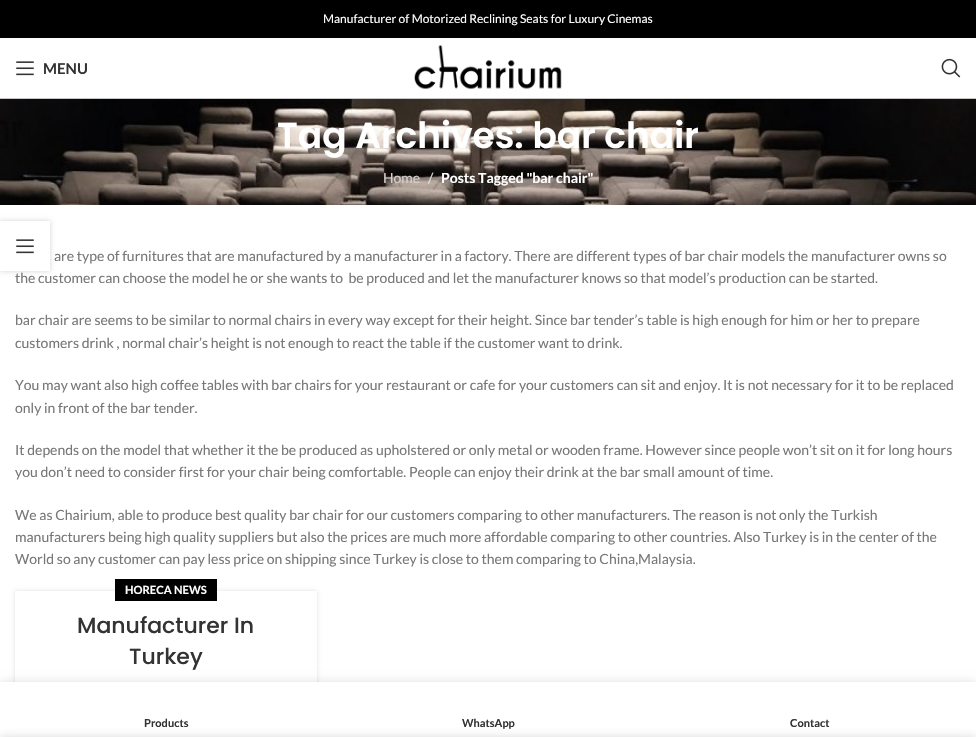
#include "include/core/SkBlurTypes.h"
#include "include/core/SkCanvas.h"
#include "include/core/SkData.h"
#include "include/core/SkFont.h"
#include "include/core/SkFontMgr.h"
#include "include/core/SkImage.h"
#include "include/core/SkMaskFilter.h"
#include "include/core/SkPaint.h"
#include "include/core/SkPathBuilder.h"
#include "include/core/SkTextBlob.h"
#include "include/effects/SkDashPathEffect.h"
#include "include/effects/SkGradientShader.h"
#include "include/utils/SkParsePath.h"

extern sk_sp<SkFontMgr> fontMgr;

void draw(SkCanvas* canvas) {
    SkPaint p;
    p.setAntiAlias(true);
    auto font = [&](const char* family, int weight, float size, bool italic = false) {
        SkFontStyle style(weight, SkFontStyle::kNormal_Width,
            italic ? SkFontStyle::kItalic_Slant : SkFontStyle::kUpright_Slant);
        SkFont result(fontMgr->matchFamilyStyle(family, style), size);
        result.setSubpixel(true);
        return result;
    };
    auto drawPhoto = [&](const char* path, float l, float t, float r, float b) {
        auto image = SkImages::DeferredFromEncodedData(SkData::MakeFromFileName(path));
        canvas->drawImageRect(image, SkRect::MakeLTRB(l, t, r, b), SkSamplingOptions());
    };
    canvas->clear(0xFFFFFFFF);
    p.setColor(0xFF000000);
    canvas->drawRect(SkRect::MakeLTRB(0, 0, 976, 38), p);
    auto font1 = font("Lato", 400, 12);
    p.setColor(0xFFFFFFFF);
    canvas->drawString("Manufacturer of Motorized Reclining Seats for Luxury Cinemas", 323, 23, font1, p);
    p.setColor(0xFFC7C7C7);
    canvas->drawRect(SkRect::MakeLTRB(0, 98, 976, 99), p);
    drawPhoto("media/1.png", 16, 61, 34, 76);
    auto font2 = font("Lato", 700, 15);
    p.setColor(0xFF333333);
    canvas->drawString("MENU", 43, 74, font2, p);
    drawPhoto("media/2.png", 414, 44, 562, 90);
    drawPhoto("media/3.png", 941, 58, 961, 78);
    drawPhoto("media/4.png", 0, 99, 976, 205);
    auto font3 = font("Poppins", 600, 36);
    p.setColor(0xFFFFFFFF);
    canvas->drawString("Tag Archives: bar chair", 277, 148, font3, p);
    auto font4 = font("Lato", 400, 14);
    p.setColor(0xFFD2CFCE);
    canvas->drawString("Home", 383, 183, font4, p);
    p.setColor(0xFFE1DFDE);
    canvas->drawString("/", 428, 183, font4, p);
    auto font5 = font("Lato", 700, 14);
    p.setColor(0xFFFFFFFF);
    canvas->drawString("Posts Tagged \"bar chair\"", 441, 183, font5, p);
    p.setColor(0xFF777777);
    {
        const struct { const char* s; float x, y; } items[] = {
            {"are type of furnitures that are manufactured by a manufacturer in a factory. There are different types of bar chair models the manufacturer owns so", 54, 261},
            {"the customer can choose the model he or she wants to  be produced and let the manufacturer knows so that model’s production can be started.", 15, 283},
            {"bar chair are seems to be similar to normal chairs in every way except for their height. Since bar tender’s table is high enough for him or her to prepare", 15, 325},
            {"customers drink , normal chair’s height is not enough to react the table if the customer want to drink.", 15, 348},
            {"You may want also high coffee tables with bar chairs for your restaurant or cafe for your customers can sit and enjoy. It is not necessary for it to be replaced", 15, 390},
            {"only in front of the bar tender.", 15, 413},
            {"It depends on the model that whether it the be produced as upholstered or only metal or wooden frame. However since people won’t sit on it for long hours", 15, 455},
            {"you don’t need to consider first for your chair being comfortable. People can enjoy their drink at the bar small amount of time.", 15, 477},
            {"We as Chairium, able to produce best quality bar chair for our customers comparing to other manufacturers. The reason is not only the Turkish", 15, 520},
            {"manufacturers being high quality suppliers but also the prices are much more affordable comparing to other countries. Also Turkey is in the center of the", 15, 542},
            {"World so any customer can pay less price on shipping since Turkey is close to them comparing to China,Malaysia.", 15, 564},
        };
        for (auto [s, x, y] : items) {
            canvas->drawString(s, x, y, font4, p);
        }
    }
    canvas->save();
    canvas->clipPath(SkPathBuilder(SkPathFillType::kEvenOdd).moveTo(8, 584).lineTo(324, 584).lineTo(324, 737).lineTo(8, 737).close().moveTo(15, 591).lineTo(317, 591).lineTo(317, 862).lineTo(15, 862).close().detach(), true);
    p.setColor(0x1F000000);
    p.setMaskFilter(SkMaskFilter::MakeBlur(kNormal_SkBlurStyle, 2));
    canvas->drawRect(SkRect::MakeLTRB(15, 591, 317, 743), p);
    p.setMaskFilter(nullptr);
    canvas->restore();
    p.setColor(0xFF000000);
    canvas->drawRect(SkRect::MakeLTRB(115, 579, 217, 601), p);
    auto font6 = font("Lato", 700, 11.25f);
    p.setColor(0xFFFFFFFF);
    canvas->drawString("HORECA NEWS", 125, 594, font6, p);
    auto font7 = font("Poppins", 500, 22);
    p.setColor(0xFF333333);
    canvas->drawString("Manufacturer In", 77, 633, font7, p);
    canvas->drawString("Turkey", 129, 664, font7, p);
    canvas->save();
    canvas->clipPath(SkPathBuilder(SkPathFillType::kEvenOdd).moveTo(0, 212).lineTo(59, 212).lineTo(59, 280).lineTo(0, 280).close().moveTo(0, 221).lineTo(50, 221).lineTo(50, 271).lineTo(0, 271).close().detach(), true);
    p.setColor(0x2B000000);
    p.setMaskFilter(SkMaskFilter::MakeBlur(kNormal_SkBlurStyle, 2.5f));
    canvas->drawRect(SkRect::MakeLTRB(0, 221, 50, 271), p);
    p.setMaskFilter(nullptr);
    canvas->restore();
    drawPhoto("media/5.png", 16, 239, 34, 254);
    p.setColor(0x1F000000);
    p.setMaskFilter(SkMaskFilter::MakeBlur(kNormal_SkBlurStyle, 4.5f));
    canvas->drawRect(SkRect::MakeLTRB(0, 682, 976, 737), p);
    p.setMaskFilter(nullptr);
    p.setColor(0xFFFFFFFF);
    canvas->drawRect(SkRect::MakeLTRB(0, 682, 976, 737), p);
    auto font8 = font("Lato", 700, 11);
    p.setColor(0xFF333333);
    {
        const struct { const char* s; float x, y; } items[] = {
            {"Products", 144, 727},
            {"WhatsApp", 462, 727},
            {"Contact", 790, 727},
        };
        for (auto [s, x, y] : items) {
            canvas->drawString(s, x, y, font8, p);
        }
    }
    p.setColor(0x24000000);
    p.setMaskFilter(SkMaskFilter::MakeBlur(kNormal_SkBlurStyle, 4.5f));
    canvas->drawRect(SkRect::MakeLTRB(0, 737, 976, 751), p);
    p.setMaskFilter(nullptr);
}
